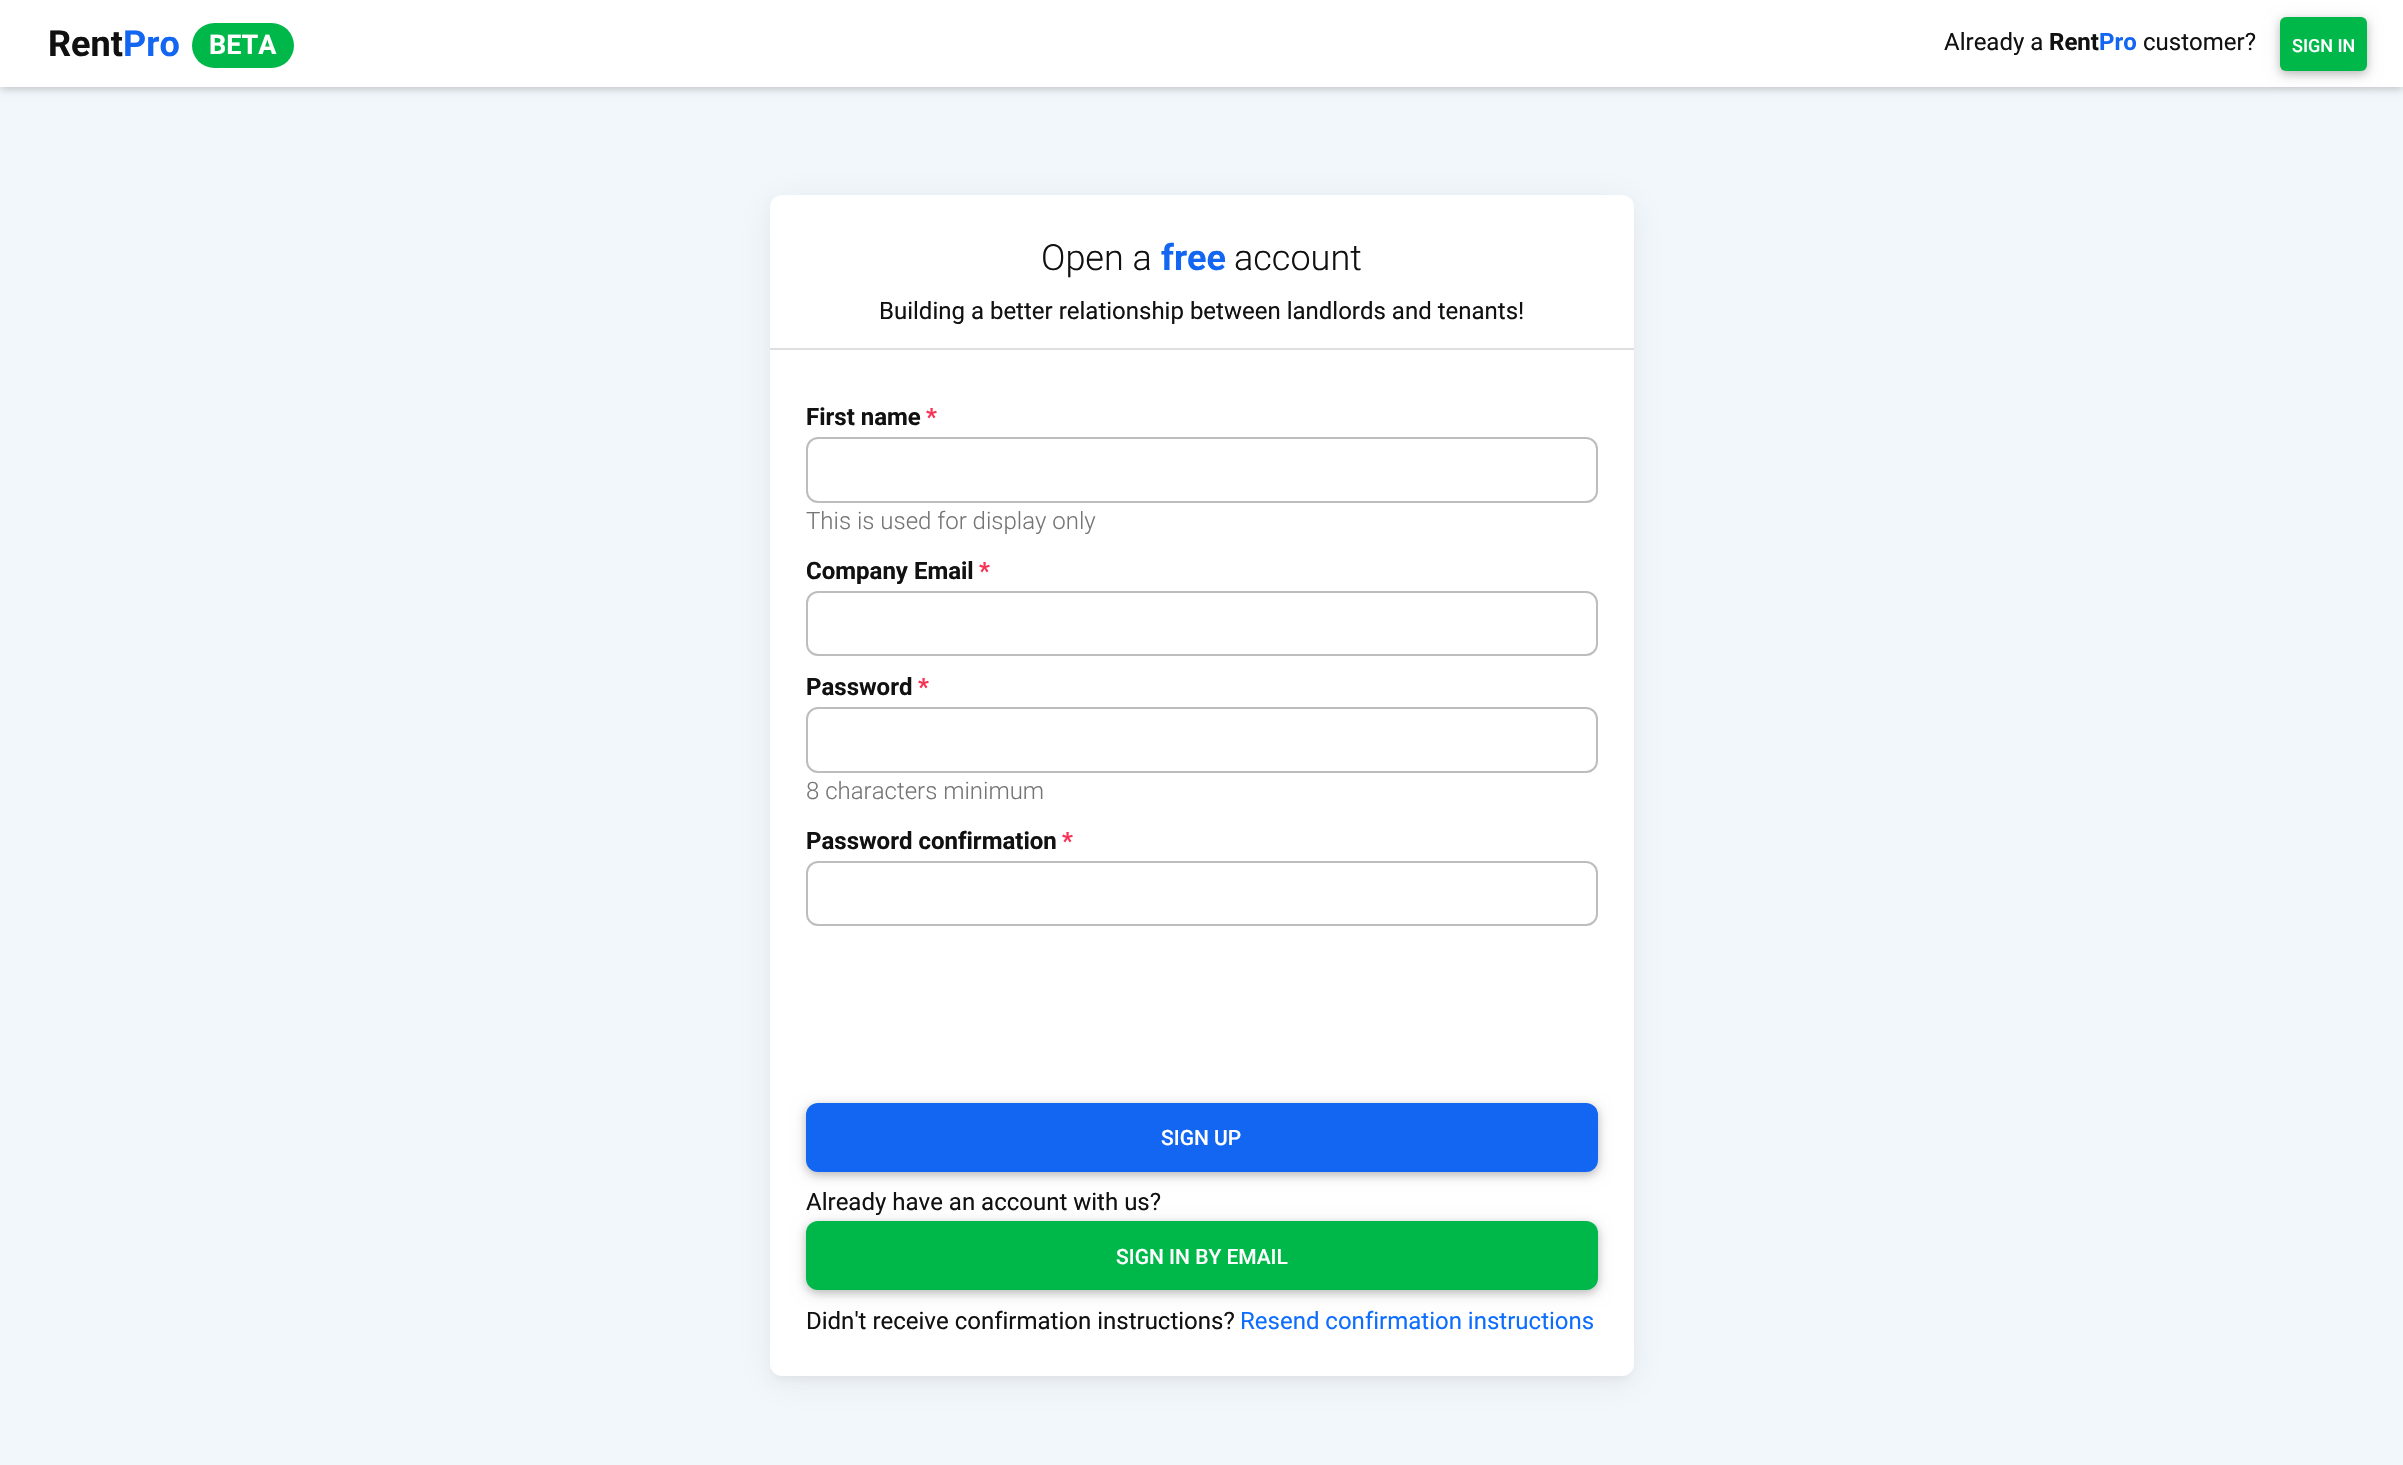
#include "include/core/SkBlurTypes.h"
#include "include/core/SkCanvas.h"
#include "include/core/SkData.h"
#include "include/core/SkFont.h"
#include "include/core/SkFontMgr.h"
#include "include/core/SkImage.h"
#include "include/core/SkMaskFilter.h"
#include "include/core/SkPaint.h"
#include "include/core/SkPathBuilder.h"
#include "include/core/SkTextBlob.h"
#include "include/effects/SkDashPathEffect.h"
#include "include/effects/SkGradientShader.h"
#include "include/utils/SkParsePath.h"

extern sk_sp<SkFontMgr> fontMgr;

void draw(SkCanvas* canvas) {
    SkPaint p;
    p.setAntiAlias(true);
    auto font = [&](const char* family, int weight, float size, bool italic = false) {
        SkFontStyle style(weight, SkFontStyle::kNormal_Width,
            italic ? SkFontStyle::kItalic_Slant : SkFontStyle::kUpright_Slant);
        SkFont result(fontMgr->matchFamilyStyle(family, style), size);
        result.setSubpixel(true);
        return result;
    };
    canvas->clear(0xFFF2F7FB);
    p.setColor(0x36000000);
    p.setMaskFilter(SkMaskFilter::MakeBlur(kNormal_SkBlurStyle, 4));
    canvas->drawRect(SkRect::MakeLTRB(0, 2, 2403, 89), p);
    p.setMaskFilter(nullptr);
    p.setColor(0xFFFFFFFF);
    canvas->drawRect(SkRect::MakeLTRB(0, 0, 2403, 87), p);
    auto font1 = font("Roboto", 700, 36);
    p.setColor(0xFF111111);
    canvas->drawString("Rent", 48, 56, font1, p);
    p.setColor(0xFF1266F1);
    canvas->drawString("Pro", 123, 56, font1, p);
    p.setColor(0xFF00B74A);
    canvas->drawRoundRect(SkRect::MakeLTRB(192, 23, 294, 68), 22.5f, 22.5f, p);
    auto font2 = font("Roboto", 700, 27);
    p.setColor(0xFFFFFFFF);
    canvas->drawString("BETA", 209, 54, font2, p);
    auto font3 = font("Roboto", 400, 24);
    p.setColor(0xFF111111);
    canvas->drawString("Already a", 1944, 50, font3, p);
    auto font4 = font("Roboto", 700, 24);
    canvas->drawString("Rent", 2049, 50, font4, p);
    p.setColor(0xFF1266F1);
    canvas->drawString("Pro", 2099, 50, font4, p);
    p.setColor(0xFF111111);
    canvas->drawString("customer?", 2143, 50, font3, p);
    p.setColor(0x1A000000);
    p.setMaskFilter(SkMaskFilter::MakeBlur(kNormal_SkBlurStyle, 7.5f));
    canvas->drawRoundRect(SkRect::MakeLTRB(2280, 20, 2367, 74), 6, 6, p);
    p.setMaskFilter(nullptr);
    p.setColor(0x33000000);
    p.setMaskFilter(SkMaskFilter::MakeBlur(kNormal_SkBlurStyle, 4));
    canvas->drawRoundRect(SkRect::MakeLTRB(2280, 20, 2367, 74), 6, 6, p);
    p.setMaskFilter(nullptr);
    p.setColor(0xFF00B74A);
    canvas->drawRoundRect(SkRect::MakeLTRB(2280, 17, 2367, 71), 6, 6, p);
    auto font5 = font("Roboto", 500, 18);
    p.setColor(0xFFFFFFFF);
    canvas->drawString("SIGN IN", 2292, 52, font5, p);
    p.setColor(0x0D000000);
    p.setMaskFilter(SkMaskFilter::MakeBlur(kNormal_SkBlurStyle, 4.5f));
    canvas->drawRoundRect(SkRect::MakeLTRB(773, 204, 1631, 1379), 9, 9, p);
    p.setMaskFilter(nullptr);
    p.setColor(0x0D141926);
    p.setMaskFilter(SkMaskFilter::MakeBlur(kNormal_SkBlurStyle, 18));
    canvas->drawRoundRect(SkRect::MakeLTRB(767, 198, 1637, 1385), 15, 15, p);
    p.setMaskFilter(nullptr);
    p.setColor(0xFFFFFFFF);
    canvas->drawRoundRect(SkRect::MakeLTRB(770, 195, 1634, 1376), 12, 12, p);
    p.setColor(0xFFDFDFDF);
    canvas->drawRect(SkRect::MakeLTRB(770, 348, 1634, 350), p);
    auto font6 = font("Roboto", 300, 36);
    p.setColor(0xFF111111);
    canvas->drawString("Open a", 1041, 270, font6, p);
    p.setColor(0xFF1266F1);
    canvas->drawString("free", 1161, 270, font1, p);
    p.setColor(0xFF111111);
    canvas->drawString("account", 1234, 270, font6, p);
    canvas->drawString("Building a better relationship between landlords and tenants!", 879, 319, font3, p);
    canvas->drawString("First name", 806, 425, font4, p);
    p.setColor(0xFFF93154);
    canvas->drawString("*", 926, 425, font4, p);
    p.setStyle(SkPaint::kStroke_Style);
    p.setStrokeWidth(2);
    p.setColor(0xFFBDBDBD);
    canvas->drawRoundRect(SkRect::MakeLTRB(807, 438, 1597, 502), 11, 11, p);
    auto font7 = font("Roboto", 300, 24);
    p.setStyle(SkPaint::kFill_Style);
    p.setColor(0xFF757575);
    canvas->drawString("This is used for display only", 806, 529, font7, p);
    p.setColor(0xFF111111);
    canvas->drawString("Company Email", 806, 579, font4, p);
    p.setColor(0xFFF93154);
    canvas->drawString("*", 979, 579, font4, p);
    p.setStyle(SkPaint::kStroke_Style);
    p.setColor(0xFFBDBDBD);
    canvas->drawRoundRect(SkRect::MakeLTRB(807, 592, 1597, 655), 11, 11, p);
    p.setStyle(SkPaint::kFill_Style);
    p.setColor(0xFF111111);
    canvas->drawString("Password", 806, 695, font4, p);
    p.setColor(0xFFF93154);
    canvas->drawString("*", 918, 695, font4, p);
    p.setStyle(SkPaint::kStroke_Style);
    p.setColor(0xFFBDBDBD);
    canvas->drawRoundRect(SkRect::MakeLTRB(807, 708, 1597, 772), 11, 11, p);
    p.setStyle(SkPaint::kFill_Style);
    p.setColor(0xFF757575);
    canvas->drawString("8 characters minimum", 806, 799, font7, p);
    p.setColor(0xFF111111);
    canvas->drawString("Password confirmation", 806, 849, font4, p);
    p.setColor(0xFFF93154);
    canvas->drawString("*", 1062, 849, font4, p);
    p.setStyle(SkPaint::kStroke_Style);
    p.setColor(0xFFBDBDBD);
    canvas->drawRoundRect(SkRect::MakeLTRB(807, 862, 1597, 925), 11, 11, p);
    p.setStyle(SkPaint::kFill_Style);
    p.setColor(0x1A000000);
    p.setMaskFilter(SkMaskFilter::MakeBlur(kNormal_SkBlurStyle, 7.5f));
    canvas->drawRoundRect(SkRect::MakeLTRB(806, 1106, 1598, 1175), 12, 12, p);
    p.setMaskFilter(nullptr);
    p.setColor(0x33000000);
    p.setMaskFilter(SkMaskFilter::MakeBlur(kNormal_SkBlurStyle, 4));
    canvas->drawRoundRect(SkRect::MakeLTRB(806, 1106, 1598, 1175), 12, 12, p);
    p.setMaskFilter(nullptr);
    p.setColor(0xFF1266F1);
    canvas->drawRoundRect(SkRect::MakeLTRB(806, 1103, 1598, 1172), 12, 12, p);
    auto font8 = font("Roboto", 500, 21);
    p.setColor(0xFFFFFFFF);
    canvas->drawString("SIGN UP", 1161, 1145, font8, p);
    p.setColor(0x1A000000);
    p.setMaskFilter(SkMaskFilter::MakeBlur(kNormal_SkBlurStyle, 7.5f));
    canvas->drawRoundRect(SkRect::MakeLTRB(806, 1224, 1598, 1293), 12, 12, p);
    p.setMaskFilter(nullptr);
    p.setColor(0x33000000);
    p.setMaskFilter(SkMaskFilter::MakeBlur(kNormal_SkBlurStyle, 4));
    canvas->drawRoundRect(SkRect::MakeLTRB(806, 1224, 1598, 1293), 12, 12, p);
    p.setMaskFilter(nullptr);
    p.setColor(0xFF111111);
    canvas->drawString("Already have an account with us?", 806, 1210, font3, p);
    p.setColor(0xFF00B74A);
    canvas->drawRoundRect(SkRect::MakeLTRB(806, 1221, 1598, 1290), 12, 12, p);
    p.setColor(0xFFFFFFFF);
    canvas->drawString("SIGN IN BY EMAIL", 1116, 1264, font8, p);
    p.setColor(0xFF111111);
    canvas->drawString("Didn't receive confirmation instructions?", 806, 1329, font3, p);
    p.setColor(0xFF0D6EFD);
    canvas->drawString("Resend confirmation instructions", 1240, 1329, font3, p);
}
